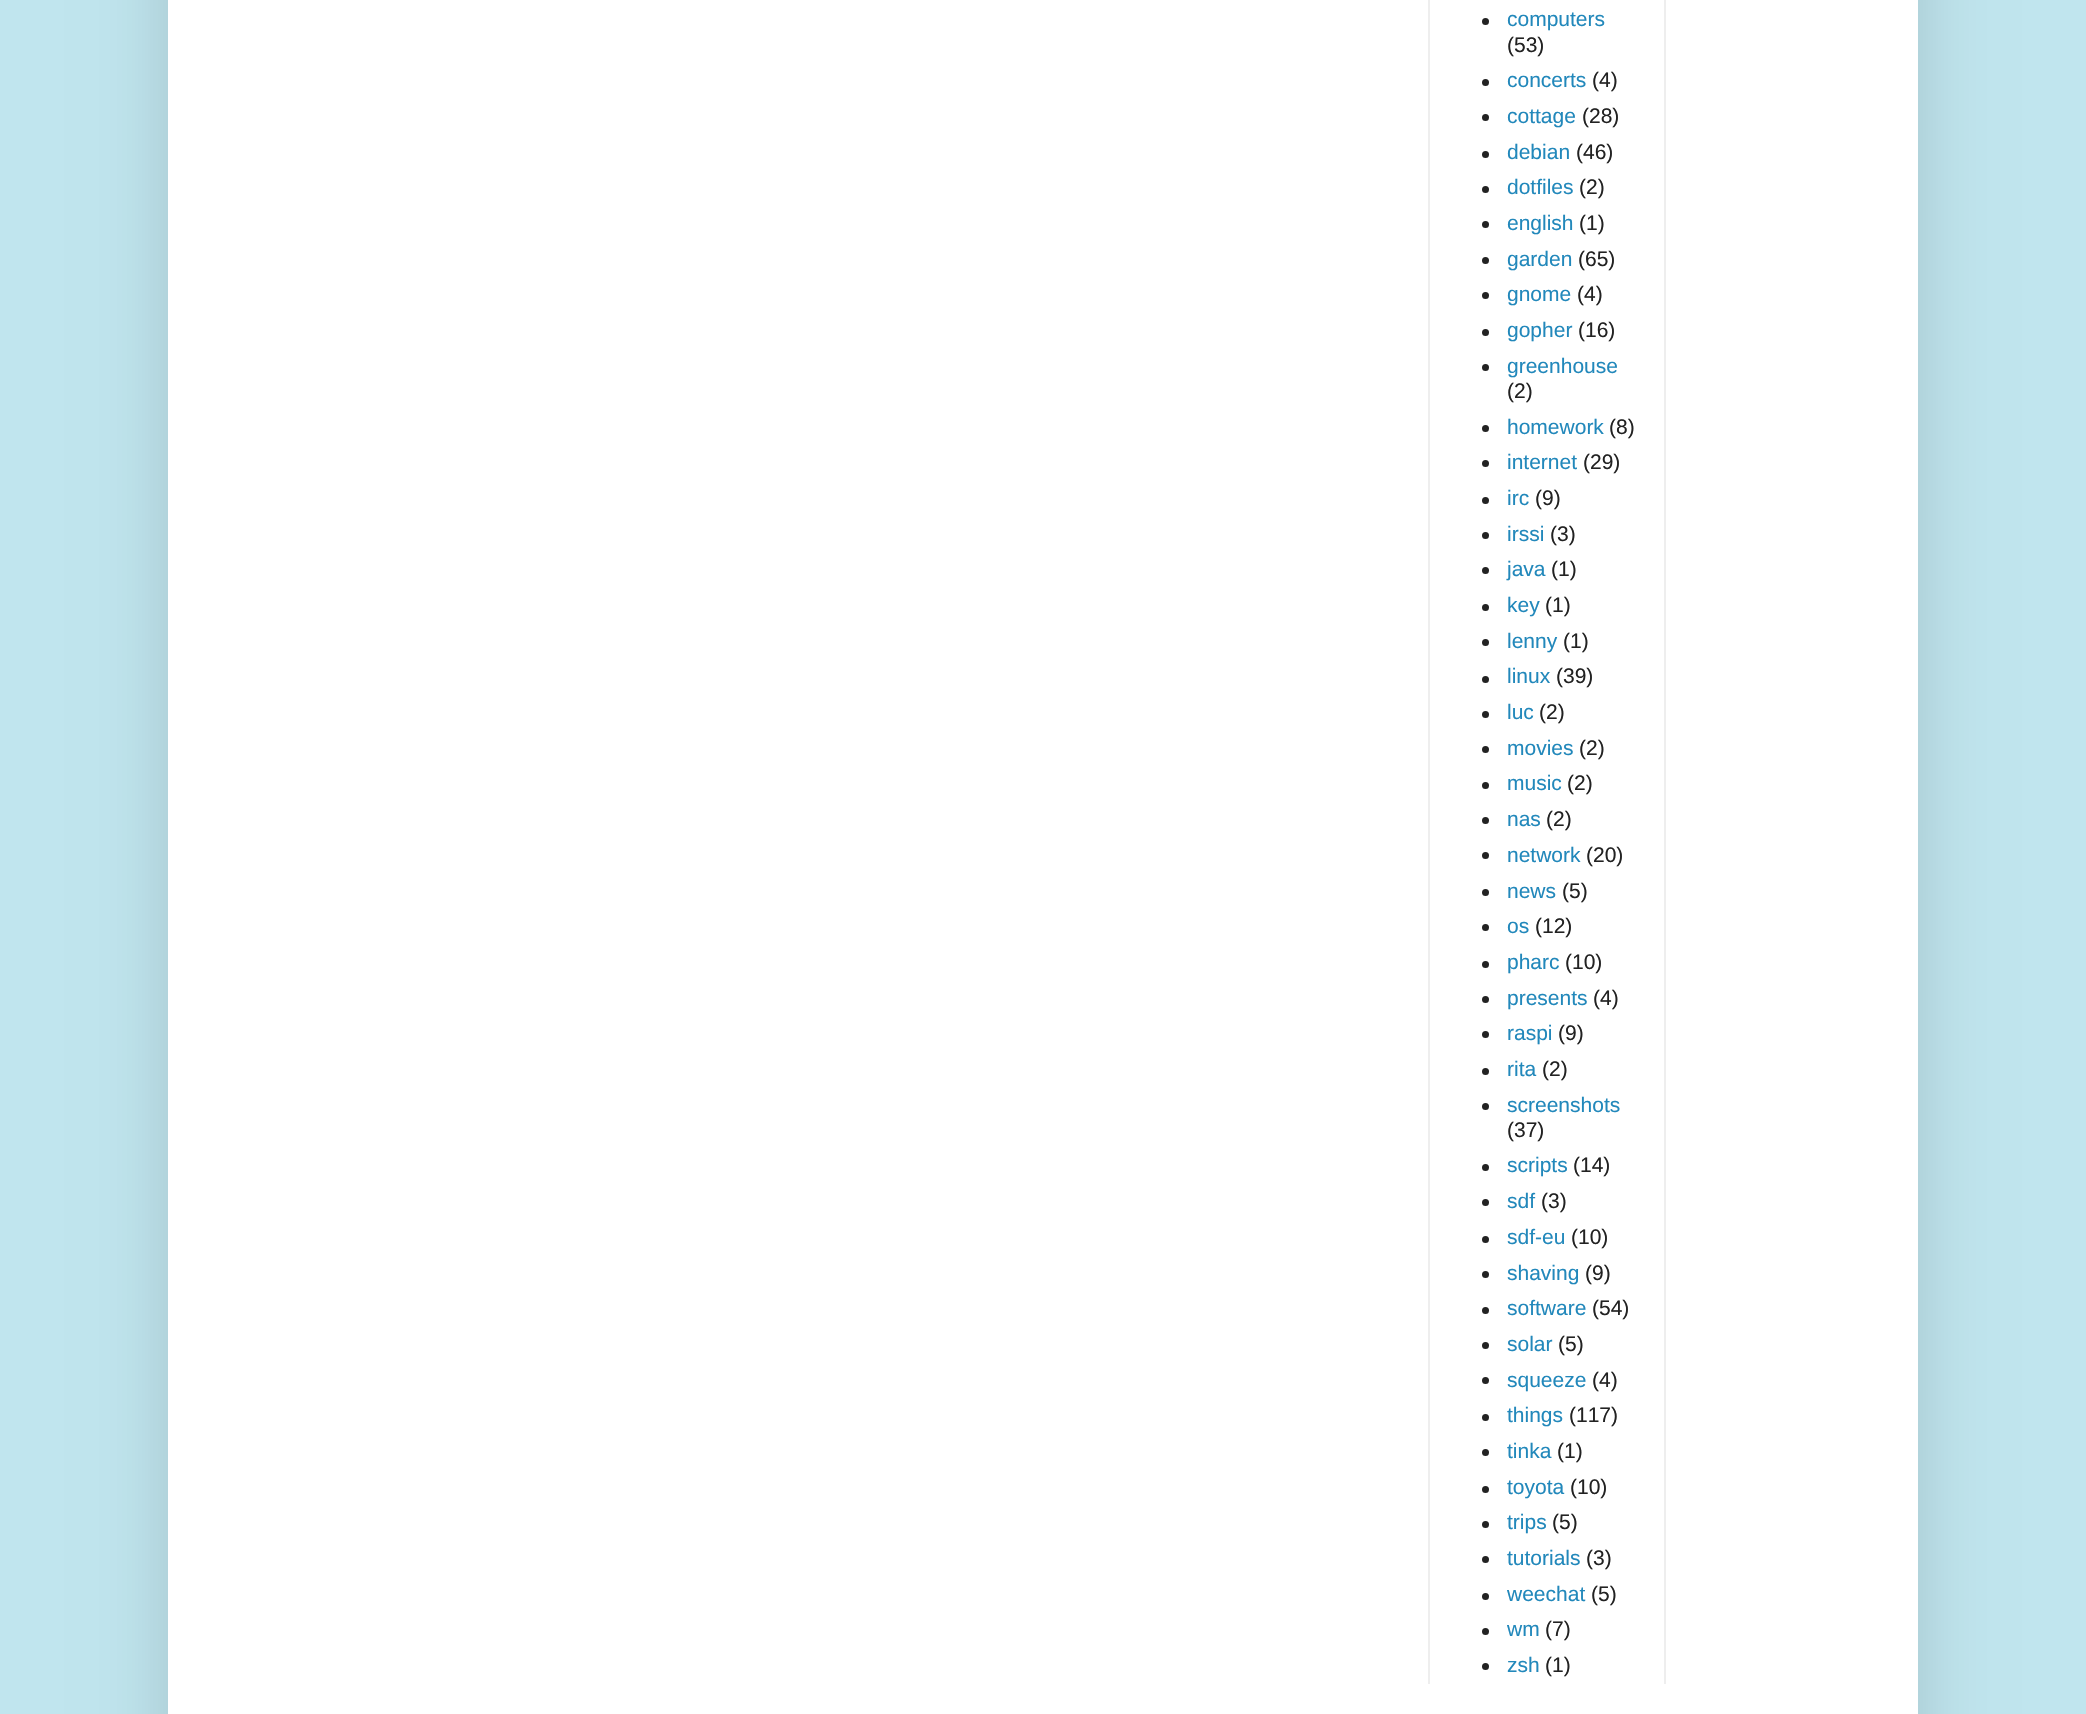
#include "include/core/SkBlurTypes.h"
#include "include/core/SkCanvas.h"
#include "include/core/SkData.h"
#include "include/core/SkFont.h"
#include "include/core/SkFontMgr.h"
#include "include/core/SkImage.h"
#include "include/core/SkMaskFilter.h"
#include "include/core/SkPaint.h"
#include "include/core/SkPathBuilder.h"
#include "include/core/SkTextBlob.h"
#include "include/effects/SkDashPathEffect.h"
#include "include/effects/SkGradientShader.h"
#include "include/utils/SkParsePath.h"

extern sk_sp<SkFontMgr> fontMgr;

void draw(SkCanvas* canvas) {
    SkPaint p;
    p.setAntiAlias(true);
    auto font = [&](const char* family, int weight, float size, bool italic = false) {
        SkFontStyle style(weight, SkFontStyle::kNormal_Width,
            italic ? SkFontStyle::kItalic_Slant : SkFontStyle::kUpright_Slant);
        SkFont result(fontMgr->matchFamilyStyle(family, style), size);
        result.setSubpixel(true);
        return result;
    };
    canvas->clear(0xFFC0E5EE);
    p.setColor(0x26000000);
    p.setMaskFilter(SkMaskFilter::MakeBlur(kNormal_SkBlurStyle, 35));
    canvas->drawRect(SkRect::MakeLTRB(168, -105, 1918, 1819), p);
    p.setMaskFilter(nullptr);
    p.setColor(0xFFFFFFFF);
    canvas->drawRect(SkRect::MakeLTRB(168, 0, 1918, 1714), p);
    p.setColor(0xFFEEEEEE);
    canvas->drawRect(SkRect::MakeLTRB(1428, 0, 1430, 1684), p);
    p.setColor(0xFF222222);
    canvas->drawCircle(1485.5f, 21.5f, 3.5f, p);
    auto font1 = font("Liberation Sans", 400, 21);
    p.setColor(0xFF2288BB);
    canvas->drawString("computers", 1507, 26, font1, p);
    p.setColor(0xFF222222);
    canvas->drawString("(53)", 1507, 52, font1, p);
    canvas->drawCircle(1485.5f, 82.5f, 3.5f, p);
    p.setColor(0xFF2288BB);
    canvas->drawString("concerts", 1507, 87, font1, p);
    p.setColor(0xFF222222);
    canvas->drawString("(4)", 1592, 87, font1, p);
    canvas->drawCircle(1485.5f, 117.5f, 3.5f, p);
    p.setColor(0xFF2288BB);
    canvas->drawString("cottage", 1507, 123, font1, p);
    p.setColor(0xFF222222);
    canvas->drawString("(28)", 1582, 123, font1, p);
    canvas->drawCircle(1485.5f, 154.5f, 3.5f, p);
    p.setColor(0xFF2288BB);
    canvas->drawString("debian", 1507, 159, font1, p);
    p.setColor(0xFF222222);
    canvas->drawString("(46)", 1576, 159, font1, p);
    canvas->drawCircle(1485.5f, 189.5f, 3.5f, p);
    p.setColor(0xFF2288BB);
    canvas->drawString("dotfiles", 1507, 194, font1, p);
    p.setColor(0xFF222222);
    canvas->drawString("(2)", 1579, 194, font1, p);
    canvas->drawCircle(1485.5f, 224.5f, 3.5f, p);
    p.setColor(0xFF2288BB);
    canvas->drawString("english", 1507, 230, font1, p);
    p.setColor(0xFF222222);
    canvas->drawString("(1)", 1579, 230, font1, p);
    canvas->drawCircle(1485.5f, 260.5f, 3.5f, p);
    p.setColor(0xFF2288BB);
    canvas->drawString("garden", 1507, 266, font1, p);
    p.setColor(0xFF222222);
    canvas->drawString("(65)", 1578, 266, font1, p);
    canvas->drawCircle(1485.5f, 295.5f, 3.5f, p);
    p.setColor(0xFF2288BB);
    canvas->drawString("gnome", 1507, 301, font1, p);
    p.setColor(0xFF222222);
    canvas->drawString("(4)", 1577, 301, font1, p);
    canvas->drawCircle(1485.5f, 332.5f, 3.5f, p);
    p.setColor(0xFF2288BB);
    canvas->drawString("gopher", 1507, 337, font1, p);
    p.setColor(0xFF222222);
    canvas->drawString("(16)", 1578, 337, font1, p);
    canvas->drawCircle(1485.5f, 367.5f, 3.5f, p);
    p.setColor(0xFF2288BB);
    canvas->drawString("greenhouse", 1507, 373, font1, p);
    p.setColor(0xFF222222);
    canvas->drawString("(2)", 1507, 398, font1, p);
    canvas->drawCircle(1485.5f, 428.5f, 3.5f, p);
    p.setColor(0xFF2288BB);
    canvas->drawString("homework", 1507, 434, font1, p);
    p.setColor(0xFF222222);
    canvas->drawString("(8)", 1609, 434, font1, p);
    canvas->drawCircle(1485.5f, 463.5f, 3.5f, p);
    p.setColor(0xFF2288BB);
    canvas->drawString("internet", 1507, 469, font1, p);
    p.setColor(0xFF222222);
    canvas->drawString("(29)", 1583, 469, font1, p);
    canvas->drawCircle(1485.5f, 500.5f, 3.5f, p);
    p.setColor(0xFF2288BB);
    canvas->drawString("irc", 1507, 505, font1, p);
    p.setColor(0xFF222222);
    canvas->drawString("(9)", 1535, 505, font1, p);
    canvas->drawCircle(1485.5f, 535.5f, 3.5f, p);
    p.setColor(0xFF2288BB);
    canvas->drawString("irssi", 1507, 541, font1, p);
    p.setColor(0xFF222222);
    canvas->drawString("(3)", 1550, 541, font1, p);
    canvas->drawCircle(1485.5f, 570.5f, 3.5f, p);
    p.setColor(0xFF2288BB);
    canvas->drawString("java", 1507, 576, font1, p);
    p.setColor(0xFF222222);
    canvas->drawString("(1)", 1551, 576, font1, p);
    canvas->drawCircle(1485.5f, 607.5f, 3.5f, p);
    p.setColor(0xFF2288BB);
    canvas->drawString("key", 1507, 612, font1, p);
    p.setColor(0xFF222222);
    canvas->drawString("(1)", 1545, 612, font1, p);
    canvas->drawCircle(1485.5f, 642.5f, 3.5f, p);
    p.setColor(0xFF2288BB);
    canvas->drawString("lenny", 1507, 648, font1, p);
    p.setColor(0xFF222222);
    canvas->drawString("(1)", 1563, 648, font1, p);
    canvas->drawCircle(1485.5f, 679.5f, 3.5f, p);
    p.setColor(0xFF2288BB);
    canvas->drawString("linux", 1507, 683, font1, p);
    p.setColor(0xFF222222);
    canvas->drawString("(39)", 1556, 683, font1, p);
    canvas->drawCircle(1485.5f, 714.5f, 3.5f, p);
    p.setColor(0xFF2288BB);
    canvas->drawString("luc", 1507, 719, font1, p);
    p.setColor(0xFF222222);
    canvas->drawString("(2)", 1539, 719, font1, p);
    canvas->drawCircle(1485.5f, 749.5f, 3.5f, p);
    p.setColor(0xFF2288BB);
    canvas->drawString("movies", 1507, 755, font1, p);
    p.setColor(0xFF222222);
    canvas->drawString("(2)", 1579, 755, font1, p);
    canvas->drawCircle(1485.5f, 785.5f, 3.5f, p);
    p.setColor(0xFF2288BB);
    canvas->drawString("music", 1507, 790, font1, p);
    p.setColor(0xFF222222);
    canvas->drawString("(2)", 1567, 790, font1, p);
    canvas->drawCircle(1485.5f, 820.5f, 3.5f, p);
    p.setColor(0xFF2288BB);
    canvas->drawString("nas", 1507, 826, font1, p);
    p.setColor(0xFF222222);
    canvas->drawString("(2)", 1546, 826, font1, p);
    canvas->drawCircle(1485.5f, 855.5f, 3.5f, p);
    p.setColor(0xFF2288BB);
    canvas->drawString("network", 1507, 862, font1, p);
    p.setColor(0xFF222222);
    canvas->drawString("(20)", 1586, 862, font1, p);
    canvas->drawCircle(1485.5f, 892.5f, 3.5f, p);
    p.setColor(0xFF2288BB);
    canvas->drawString("news", 1507, 898, font1, p);
    p.setColor(0xFF222222);
    canvas->drawString("(5)", 1562, 898, font1, p);
    canvas->drawCircle(1485.5f, 927.5f, 3.5f, p);
    p.setColor(0xFF2288BB);
    canvas->drawString("os", 1507, 933, font1, p);
    p.setColor(0xFF222222);
    canvas->drawString("(12)", 1535, 933, font1, p);
    canvas->drawCircle(1485.5f, 964.5f, 3.5f, p);
    p.setColor(0xFF2288BB);
    canvas->drawString("pharc", 1507, 969, font1, p);
    p.setColor(0xFF222222);
    canvas->drawString("(10)", 1565, 969, font1, p);
    canvas->drawCircle(1485.5f, 999.5f, 3.5f, p);
    p.setColor(0xFF2288BB);
    canvas->drawString("presents", 1507, 1005, font1, p);
    p.setColor(0xFF222222);
    canvas->drawString("(4)", 1593, 1005, font1, p);
    canvas->drawCircle(1485.5f, 1034.5f, 3.5f, p);
    p.setColor(0xFF2288BB);
    canvas->drawString("raspi", 1507, 1040, font1, p);
    p.setColor(0xFF222222);
    canvas->drawString("(9)", 1558, 1040, font1, p);
    canvas->drawCircle(1485.5f, 1071.5f, 3.5f, p);
    p.setColor(0xFF2288BB);
    canvas->drawString("rita", 1507, 1076, font1, p);
    p.setColor(0xFF222222);
    canvas->drawString("(2)", 1542, 1076, font1, p);
    canvas->drawCircle(1485.5f, 1106.5f, 3.5f, p);
    p.setColor(0xFF2288BB);
    canvas->drawString("screenshots", 1507, 1112, font1, p);
    p.setColor(0xFF222222);
    canvas->drawString("(37)", 1507, 1137, font1, p);
    canvas->drawCircle(1485.5f, 1167.5f, 3.5f, p);
    p.setColor(0xFF2288BB);
    canvas->drawString("scripts", 1507, 1172, font1, p);
    p.setColor(0xFF222222);
    canvas->drawString("(14)", 1573, 1172, font1, p);
    canvas->drawCircle(1485.5f, 1202.5f, 3.5f, p);
    p.setColor(0xFF2288BB);
    canvas->drawString("sdf", 1507, 1208, font1, p);
    p.setColor(0xFF222222);
    canvas->drawString("(3)", 1541, 1208, font1, p);
    canvas->drawCircle(1485.5f, 1239.5f, 3.5f, p);
    p.setColor(0xFF2288BB);
    canvas->drawString("sdf-eu", 1507, 1244, font1, p);
    p.setColor(0xFF222222);
    canvas->drawString("(10)", 1571, 1244, font1, p);
    canvas->drawCircle(1485.5f, 1274.5f, 3.5f, p);
    p.setColor(0xFF2288BB);
    canvas->drawString("shaving", 1507, 1280, font1, p);
    p.setColor(0xFF222222);
    canvas->drawString("(9)", 1585, 1280, font1, p);
    canvas->drawCircle(1485.5f, 1310.5f, 3.5f, p);
    p.setColor(0xFF2288BB);
    canvas->drawString("software", 1507, 1315, font1, p);
    p.setColor(0xFF222222);
    canvas->drawString("(54)", 1592, 1315, font1, p);
    canvas->drawCircle(1485.5f, 1345.5f, 3.5f, p);
    p.setColor(0xFF2288BB);
    canvas->drawString("solar", 1507, 1351, font1, p);
    p.setColor(0xFF222222);
    canvas->drawString("(5)", 1558, 1351, font1, p);
    canvas->drawCircle(1485.5f, 1380.5f, 3.5f, p);
    p.setColor(0xFF2288BB);
    canvas->drawString("squeeze", 1507, 1387, font1, p);
    p.setColor(0xFF222222);
    canvas->drawString("(4)", 1592, 1387, font1, p);
    canvas->drawCircle(1485.5f, 1417.5f, 3.5f, p);
    p.setColor(0xFF2288BB);
    canvas->drawString("things", 1507, 1422, font1, p);
    p.setColor(0xFF222222);
    canvas->drawString("(117)", 1569, 1422, font1, p);
    canvas->drawCircle(1485.5f, 1452.5f, 3.5f, p);
    p.setColor(0xFF2288BB);
    canvas->drawString("tinka", 1507, 1458, font1, p);
    p.setColor(0xFF222222);
    canvas->drawString("(1)", 1557, 1458, font1, p);
    canvas->drawCircle(1485.5f, 1489.5f, 3.5f, p);
    p.setColor(0xFF2288BB);
    canvas->drawString("toyota", 1507, 1494, font1, p);
    p.setColor(0xFF222222);
    canvas->drawString("(10)", 1570, 1494, font1, p);
    canvas->drawCircle(1485.5f, 1524.5f, 3.5f, p);
    p.setColor(0xFF2288BB);
    canvas->drawString("trips", 1507, 1529, font1, p);
    p.setColor(0xFF222222);
    canvas->drawString("(5)", 1552, 1529, font1, p);
    canvas->drawCircle(1485.5f, 1559.5f, 3.5f, p);
    p.setColor(0xFF2288BB);
    canvas->drawString("tutorials", 1507, 1565, font1, p);
    p.setColor(0xFF222222);
    canvas->drawString("(3)", 1586, 1565, font1, p);
    canvas->drawCircle(1485.5f, 1596.5f, 3.5f, p);
    p.setColor(0xFF2288BB);
    canvas->drawString("weechat", 1507, 1601, font1, p);
    p.setColor(0xFF222222);
    canvas->drawString("(5)", 1591, 1601, font1, p);
    canvas->drawCircle(1485.5f, 1631.5f, 3.5f, p);
    p.setColor(0xFF2288BB);
    canvas->drawString("wm", 1507, 1636, font1, p);
    p.setColor(0xFF222222);
    canvas->drawString("(7)", 1545, 1636, font1, p);
    canvas->drawCircle(1485.5f, 1666.5f, 3.5f, p);
    p.setColor(0xFF2288BB);
    canvas->drawString("zsh", 1507, 1672, font1, p);
    p.setColor(0xFF222222);
    canvas->drawString("(1)", 1545, 1672, font1, p);
    p.setColor(0xFFEEEEEE);
    canvas->drawRect(SkRect::MakeLTRB(1664, 0, 1666, 1684), p);
}
